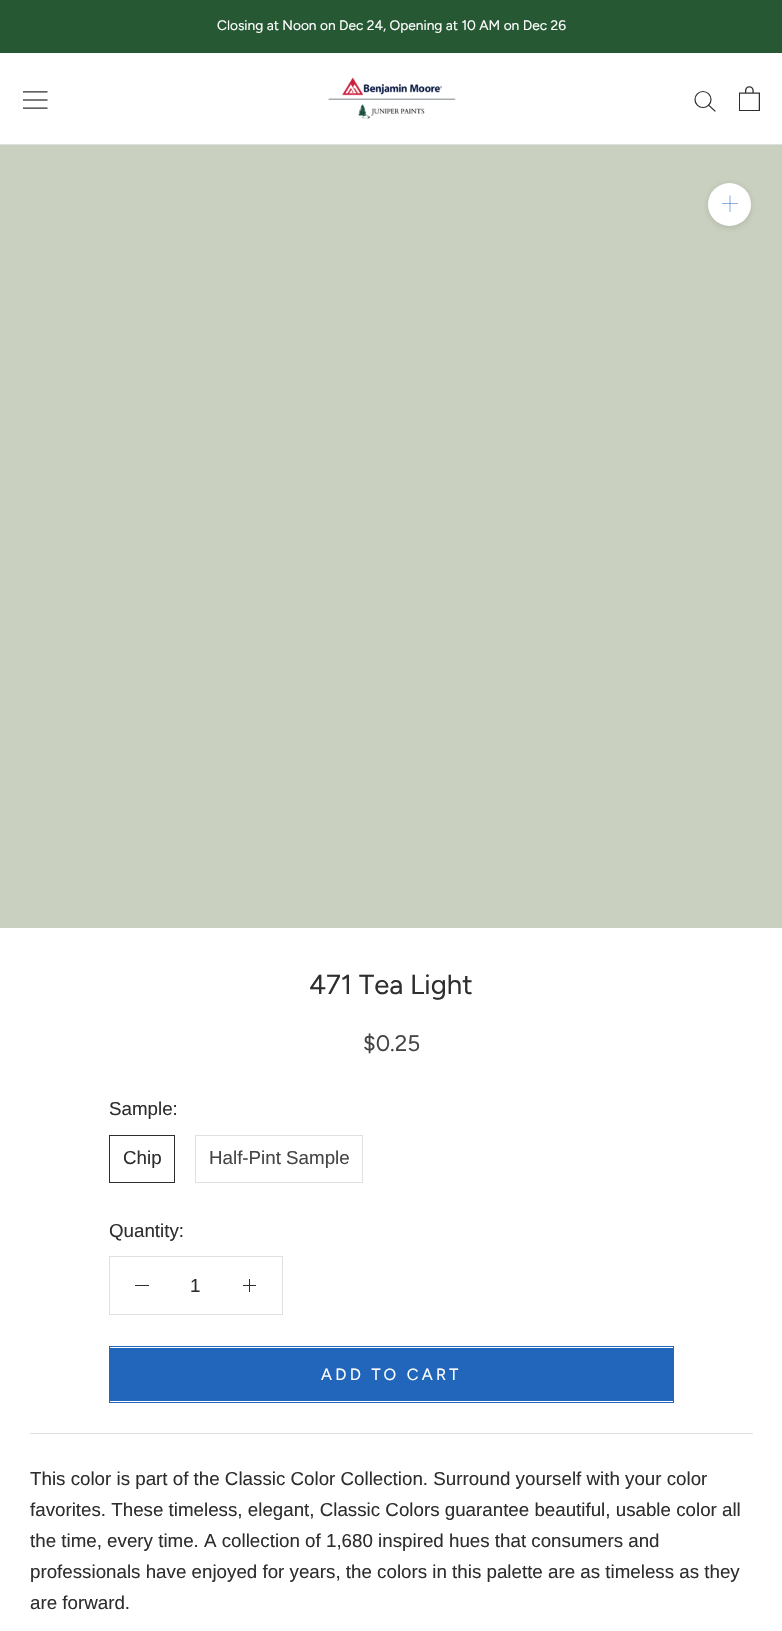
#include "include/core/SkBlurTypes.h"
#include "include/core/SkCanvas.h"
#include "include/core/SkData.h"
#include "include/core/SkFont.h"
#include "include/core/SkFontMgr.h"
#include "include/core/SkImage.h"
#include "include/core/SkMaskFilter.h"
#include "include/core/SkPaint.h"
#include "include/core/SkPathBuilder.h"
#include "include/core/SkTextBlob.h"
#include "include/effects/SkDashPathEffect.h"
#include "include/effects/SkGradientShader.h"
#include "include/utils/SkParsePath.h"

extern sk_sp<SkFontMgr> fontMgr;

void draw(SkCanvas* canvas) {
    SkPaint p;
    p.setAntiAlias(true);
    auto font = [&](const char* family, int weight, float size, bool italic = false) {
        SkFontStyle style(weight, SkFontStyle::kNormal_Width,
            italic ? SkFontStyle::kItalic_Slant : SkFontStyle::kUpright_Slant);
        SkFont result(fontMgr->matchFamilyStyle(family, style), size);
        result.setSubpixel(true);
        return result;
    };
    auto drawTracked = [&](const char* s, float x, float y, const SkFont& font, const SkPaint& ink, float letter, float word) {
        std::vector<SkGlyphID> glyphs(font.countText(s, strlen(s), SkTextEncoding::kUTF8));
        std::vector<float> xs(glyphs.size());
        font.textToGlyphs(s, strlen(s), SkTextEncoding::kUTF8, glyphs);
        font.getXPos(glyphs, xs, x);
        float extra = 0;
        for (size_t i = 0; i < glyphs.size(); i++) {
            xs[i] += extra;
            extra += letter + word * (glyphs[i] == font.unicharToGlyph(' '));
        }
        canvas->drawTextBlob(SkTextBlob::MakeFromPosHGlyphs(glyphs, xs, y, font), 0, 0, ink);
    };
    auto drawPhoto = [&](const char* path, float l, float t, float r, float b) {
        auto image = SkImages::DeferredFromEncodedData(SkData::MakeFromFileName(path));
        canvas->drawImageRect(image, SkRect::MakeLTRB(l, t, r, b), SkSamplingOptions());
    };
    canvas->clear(0xFFFFFFFF);
    p.setColor(0xFF265834);
    canvas->drawRect(SkRect::MakeLTRB(0, 0, 782, 53), p);
    auto font1 = font("Figtree", 400, 13.75f);
    p.setColor(0xFFFFFFFF);
    canvas->drawString("Closing at Noon on Dec 24, Opening at 10 AM on Dec 26", 217, 30, font1, p);
    p.setColor(0xFFE0E0E0);
    canvas->drawRect(SkRect::MakeLTRB(0, 144, 782, 145), p);
    drawPhoto("media/1.png", 23, 91, 48, 109);
    drawPhoto("media/2.png", 328, 77, 456, 119);
    p.setStyle(SkPaint::kStroke_Style);
    p.setStrokeWidth(1.2f);
    p.setStrokeCap(SkPaint::kSquare_Cap);
    p.setColor(0xFF2E2E2E);
    canvas->drawPath(SkPathBuilder().moveTo(715, 111).lineTo(708.5f, 105).detach(), p);
    p.setStrokeCap(SkPaint::kButt_Cap);
    canvas->drawCircle(703, 99.5f, 8, p);
    drawPhoto("media/3.png", 739, 86, 760, 111);
    p.setStyle(SkPaint::kFill_Style);
    p.setColor(0xFFC9D0BF);
    canvas->drawRect(SkRect::MakeLTRB(0, 145, 782, 928), p);
    p.setColor(0x26363636);
    p.setMaskFilter(SkMaskFilter::MakeBlur(kNormal_SkBlurStyle, 3));
    canvas->drawRoundRect(SkRect::MakeLTRB(708, 184, 751, 228), 21.5f, 21.5f, p);
    p.setMaskFilter(nullptr);
    p.setColor(0xFFFFFFFF);
    canvas->drawCircle(729.5f, 204.5f, 21.5f, p);
    p.setStyle(SkPaint::kStroke_Style);
    p.setStrokeWidth(1.1f);
    p.setStrokeCap(SkPaint::kSquare_Cap);
    p.setColor(0xFF91B3DD);
    canvas->drawPath(SkPathBuilder().moveTo(730, 196).lineTo(730, 211.5f).detach(), p);
    p.setStyle(SkPaint::kFill_Style);
    p.setColor(0x802266BB);
    canvas->drawRect(SkRect::MakeLTRB(722, 203, 738, 204), p);
    auto font2 = font("Figtree", 400, 27.5f);
    p.setColor(0xFF2E2E2E);
    canvas->drawString("471 Tea Light", 309, 994, font2, p);
    auto font3 = font("Figtree", 400, 22.5f);
    p.setColor(0xFF454545);
    canvas->drawString("$0.25", 363, 1051, font3, p);
    auto font4 = font("Liberation Sans", 400, 18.75f);
    p.setColor(0xFF2E2E2E);
    canvas->drawString("Sample:", 109, 1115, font4, p);
    p.setStyle(SkPaint::kStroke_Style);
    p.setStrokeWidth(1);
    p.setStrokeCap(SkPaint::kButt_Cap);
    canvas->drawRect(SkRect::MakeLTRB(109.5f, 1135.5f, 174.5f, 1182.5f), p);
    p.setStyle(SkPaint::kFill_Style);
    canvas->drawString("Chip", 123, 1164, font4, p);
    p.setStyle(SkPaint::kStroke_Style);
    p.setColor(0xFFE0E0E0);
    canvas->drawRect(SkRect::MakeLTRB(195.5f, 1135.5f, 362.5f, 1182.5f), p);
    p.setStyle(SkPaint::kFill_Style);
    p.setColor(0xFF454545);
    canvas->drawString("Half-Pint Sample", 209, 1164, font4, p);
    p.setColor(0xFF2E2E2E);
    canvas->drawString("Quantity:", 109, 1237, font4, p);
    p.setStyle(SkPaint::kStroke_Style);
    p.setColor(0xFFE0E0E0);
    canvas->drawRect(SkRect::MakeLTRB(109.5f, 1256.5f, 282.5f, 1314.5f), p);
    p.setStyle(SkPaint::kFill_Style);
    p.setColor(0xFF2E2E2E);
    canvas->drawRect(SkRect::MakeLTRB(135, 1285, 149, 1286), p);
    canvas->drawString("1", 190, 1292, font4, p);
    canvas->drawRect(SkRect::MakeLTRB(249, 1279, 250, 1292), p);
    canvas->drawRect(SkRect::MakeLTRB(243, 1285, 256, 1286), p);
    p.setStyle(SkPaint::kStroke_Style);
    p.setColor(0xFF2266BB);
    canvas->drawRect(SkRect::MakeLTRB(109.5f, 1346.5f, 673.5f, 1402.5f), p);
    p.setStyle(SkPaint::kFill_Style);
    canvas->drawRect(SkRect::MakeLTRB(110, 1348, 673, 1401), p);
    auto font5 = font("Figtree", 400, 16.25f);
    p.setColor(0xFFFFFFFF);
    drawTracked("ADD TO CART", 321, 1380, font5, p, 3.25f, 0);
    p.setColor(0xFFE0E0E0);
    canvas->drawRect(SkRect::MakeLTRB(30, 1433, 753, 1434), p);
    p.setColor(0xFF2E2E2E);
    {
        const struct { const char* s; float x, y; } items[] = {
            {"This color is part of the Classic Color Collection. Surround yourself with your color", 30, 1485},
            {"favorites. These timeless, elegant, Classic Colors guarantee beautiful, usable color all", 30, 1516},
            {"the time, every time. A collection of 1,680 inspired hues that consumers and", 30, 1547},
            {"professionals have enjoyed for years, the colors in this palette are as timeless as they", 30, 1578},
            {"are forward.", 30, 1609},
        };
        for (auto [s, x, y] : items) {
            canvas->drawString(s, x, y, font4, p);
        }
    }
}
